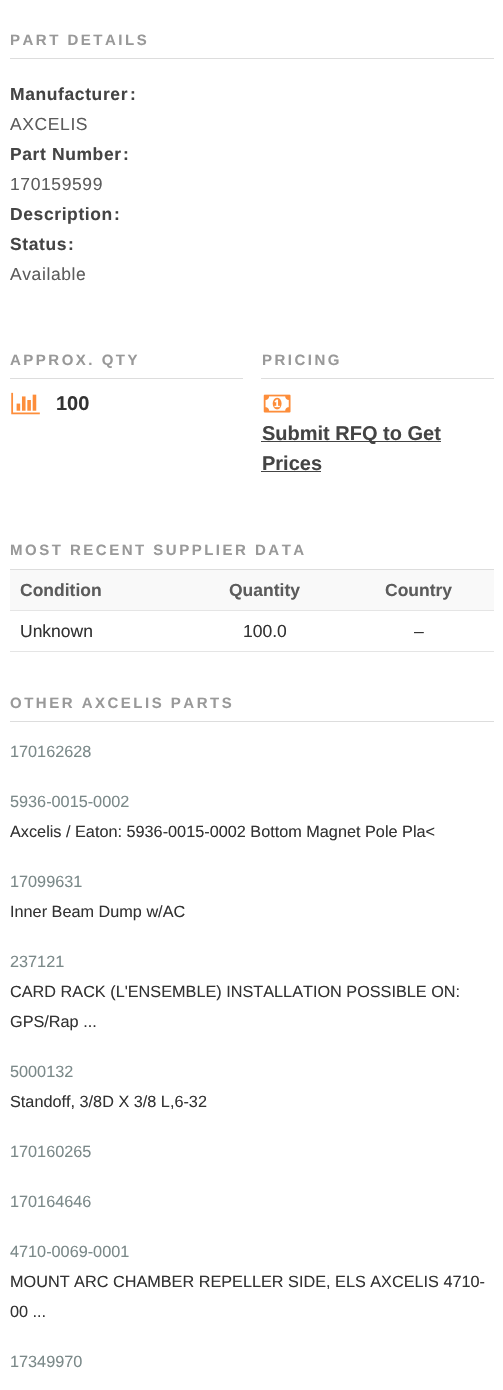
#include "include/core/SkBlurTypes.h"
#include "include/core/SkCanvas.h"
#include "include/core/SkData.h"
#include "include/core/SkFont.h"
#include "include/core/SkFontMgr.h"
#include "include/core/SkImage.h"
#include "include/core/SkMaskFilter.h"
#include "include/core/SkPaint.h"
#include "include/core/SkPathBuilder.h"
#include "include/core/SkTextBlob.h"
#include "include/effects/SkDashPathEffect.h"
#include "include/effects/SkGradientShader.h"
#include "include/utils/SkParsePath.h"

extern sk_sp<SkFontMgr> fontMgr;

void draw(SkCanvas* canvas) {
    SkPaint p;
    p.setAntiAlias(true);
    auto font = [&](const char* family, int weight, float size, bool italic = false) {
        SkFontStyle style(weight, SkFontStyle::kNormal_Width,
            italic ? SkFontStyle::kItalic_Slant : SkFontStyle::kUpright_Slant);
        SkFont result(fontMgr->matchFamilyStyle(family, style), size);
        result.setSubpixel(true);
        return result;
    };
    auto drawTracked = [&](const char* s, float x, float y, const SkFont& font, const SkPaint& ink, float letter, float word) {
        std::vector<SkGlyphID> glyphs(font.countText(s, strlen(s), SkTextEncoding::kUTF8));
        std::vector<float> xs(glyphs.size());
        font.textToGlyphs(s, strlen(s), SkTextEncoding::kUTF8, glyphs);
        font.getXPos(glyphs, xs, x);
        float extra = 0;
        for (size_t i = 0; i < glyphs.size(); i++) {
            xs[i] += extra;
            extra += letter + word * (glyphs[i] == font.unicharToGlyph(' '));
        }
        canvas->drawTextBlob(SkTextBlob::MakeFromPosHGlyphs(glyphs, xs, y, font), 0, 0, ink);
    };
    auto drawPhoto = [&](const char* path, float l, float t, float r, float b) {
        auto image = SkImages::DeferredFromEncodedData(SkData::MakeFromFileName(path));
        canvas->drawImageRect(image, SkRect::MakeLTRB(l, t, r, b), SkSamplingOptions());
    };
    canvas->clear(0xFFFFFFFF);
    p.setColor(0xFFDDDDDD);
    canvas->drawRect(SkRect::MakeLTRB(10, 58, 494, 59), p);
    auto font1 = font("Liberation Sans", 700, 15);
    p.setColor(0xFF999999);
    drawTracked("PART DETAILS", 10, 45, font1, p, 2.5f, 0);
    auto font2 = font("Liberation Sans", 700, 17.5f);
    p.setColor(0xFF444444);
    drawTracked("Manufacturer", 10, 100, font2, p, 0.6f, 0);
    drawTracked(":", 130, 100, font2, p, 0.6f, 0);
    auto font3 = font("Liberation Sans", 400, 17.5f);
    p.setColor(0xFF5C5C5C);
    drawTracked("AXCELIS", 10, 130, font3, p, 0.6f, 0);
    p.setColor(0xFF444444);
    drawTracked("Part Number", 10, 160, font2, p, 0.6f, 0);
    drawTracked(":", 123, 160, font2, p, 0.6f, 0);
    p.setColor(0xFF5C5C5C);
    drawTracked("170159599", 10, 190, font3, p, 0.6f, 0);
    p.setColor(0xFF444444);
    {
        const struct { const char* s; float x, y; } items[] = {
            {"Description", 10, 220},
            {":", 114, 220},
            {"Status", 10, 250},
            {":", 68, 250},
        };
        for (auto [s, x, y] : items) {
            drawTracked(s, x, y, font2, p, 0.6f, 0);
        }
    }
    p.setColor(0xFF5C5C5C);
    drawTracked("Available", 10, 280, font3, p, 0.6f, 0);
    p.setColor(0xFFDDDDDD);
    canvas->drawRect(SkRect::MakeLTRB(10, 378, 243, 379), p);
    p.setColor(0xFF999999);
    drawTracked("APPROX. QTY", 10, 365, font1, p, 2.5f, 0);
    drawPhoto("media/1.png", 11, 392, 40, 415);
    auto font4 = font("Liberation Sans", 700, 20);
    p.setColor(0xFF333333);
    canvas->drawString("100", 56, 410, font4, p);
    p.setColor(0xFFDDDDDD);
    canvas->drawRect(SkRect::MakeLTRB(261, 378, 494, 379), p);
    p.setColor(0xFF999999);
    drawTracked("PRICING", 262, 365, font1, p, 2.5f, 0);
    drawPhoto("media/2.png", 263, 394, 291, 413);
    p.setColor(0xFF444444);
    canvas->drawRect(SkRect::MakeLTRB(261, 441, 441, 442), p);
    canvas->drawString("Submit RFQ to Get", 262, 440, font4, p);
    canvas->drawString("Prices", 262, 470, font4, p);
    canvas->drawRect(SkRect::MakeLTRB(261, 471, 321, 472), p);
    p.setColor(0xFFDDDDDD);
    canvas->drawRect(SkRect::MakeLTRB(10, 569, 494, 570), p);
    p.setColor(0xFF999999);
    drawTracked("MOST RECENT SUPPLIER DATA", 10, 555, font1, p, 2.5f, 0);
    p.setColor(0xFFF9F9F9);
    canvas->drawRect(SkRect::MakeLTRB(10, 570, 494, 610), p);
    p.setColor(0xFF5C5C5C);
    canvas->drawString("Condition", 20, 596, font2, p);
    canvas->drawString("Quantity", 229, 596, font2, p);
    p.setColor(0xFFE5E5E5);
    canvas->drawRect(SkRect::MakeLTRB(10, 610, 494, 611), p);
    p.setColor(0xFF5C5C5C);
    canvas->drawString("Country", 385, 596, font2, p);
    p.setColor(0xFF333333);
    canvas->drawString("Unknown", 20, 637, font3, p);
    canvas->drawString("100.0", 243, 637, font3, p);
    p.setColor(0xFFE5E5E5);
    canvas->drawRect(SkRect::MakeLTRB(10, 651, 494, 652), p);
    p.setColor(0xFF333333);
    canvas->drawString("–", 414, 637, font3, p);
    p.setColor(0xFFDDDDDD);
    canvas->drawRect(SkRect::MakeLTRB(10, 721, 494, 722), p);
    p.setColor(0xFF999999);
    drawTracked("OTHER AXCELIS PARTS", 10, 708, font1, p, 2.5f, 0);
    auto font5 = font("Liberation Sans", 400, 16.25f);
    p.setColor(0xFF7B8989);
    canvas->drawString("170162628", 10, 757, font5, p);
    canvas->drawString("5936-0015-0002", 10, 807, font5, p);
    p.setColor(0xFF333333);
    canvas->drawString("Axcelis / Eaton: 5936-0015-0002 Bottom Magnet Pole Pla<", 10, 837, font5, p);
    p.setColor(0xFF7B8989);
    canvas->drawString("17099631", 10, 887, font5, p);
    p.setColor(0xFF333333);
    canvas->drawString("Inner Beam Dump w/AC", 10, 917, font5, p);
    p.setColor(0xFF7B8989);
    canvas->drawString("237121", 10, 967, font5, p);
    p.setColor(0xFF333333);
    canvas->drawString("CARD RACK (L'ENSEMBLE) INSTALLATION POSSIBLE ON:", 10, 997, font5, p);
    canvas->drawString("GPS/Rap ...", 10, 1027, font5, p);
    p.setColor(0xFF7B8989);
    canvas->drawString("5000132", 10, 1077, font5, p);
    p.setColor(0xFF333333);
    canvas->drawString("Standoff, 3/8D X 3/8 L,6-32", 10, 1107, font5, p);
    p.setColor(0xFF7B8989);
    {
        const struct { const char* s; float x, y; } items[] = {
            {"170160265", 10, 1157},
            {"170164646", 10, 1207},
            {"4710-0069-0001", 10, 1257},
        };
        for (auto [s, x, y] : items) {
            canvas->drawString(s, x, y, font5, p);
        }
    }
    p.setColor(0xFF333333);
    canvas->drawString("MOUNT ARC CHAMBER REPELLER SIDE, ELS AXCELIS 4710-", 10, 1287, font5, p);
    canvas->drawString("00 ...", 10, 1317, font5, p);
    p.setColor(0xFF7B8989);
    canvas->drawString("17349970", 10, 1367, font5, p);
}
